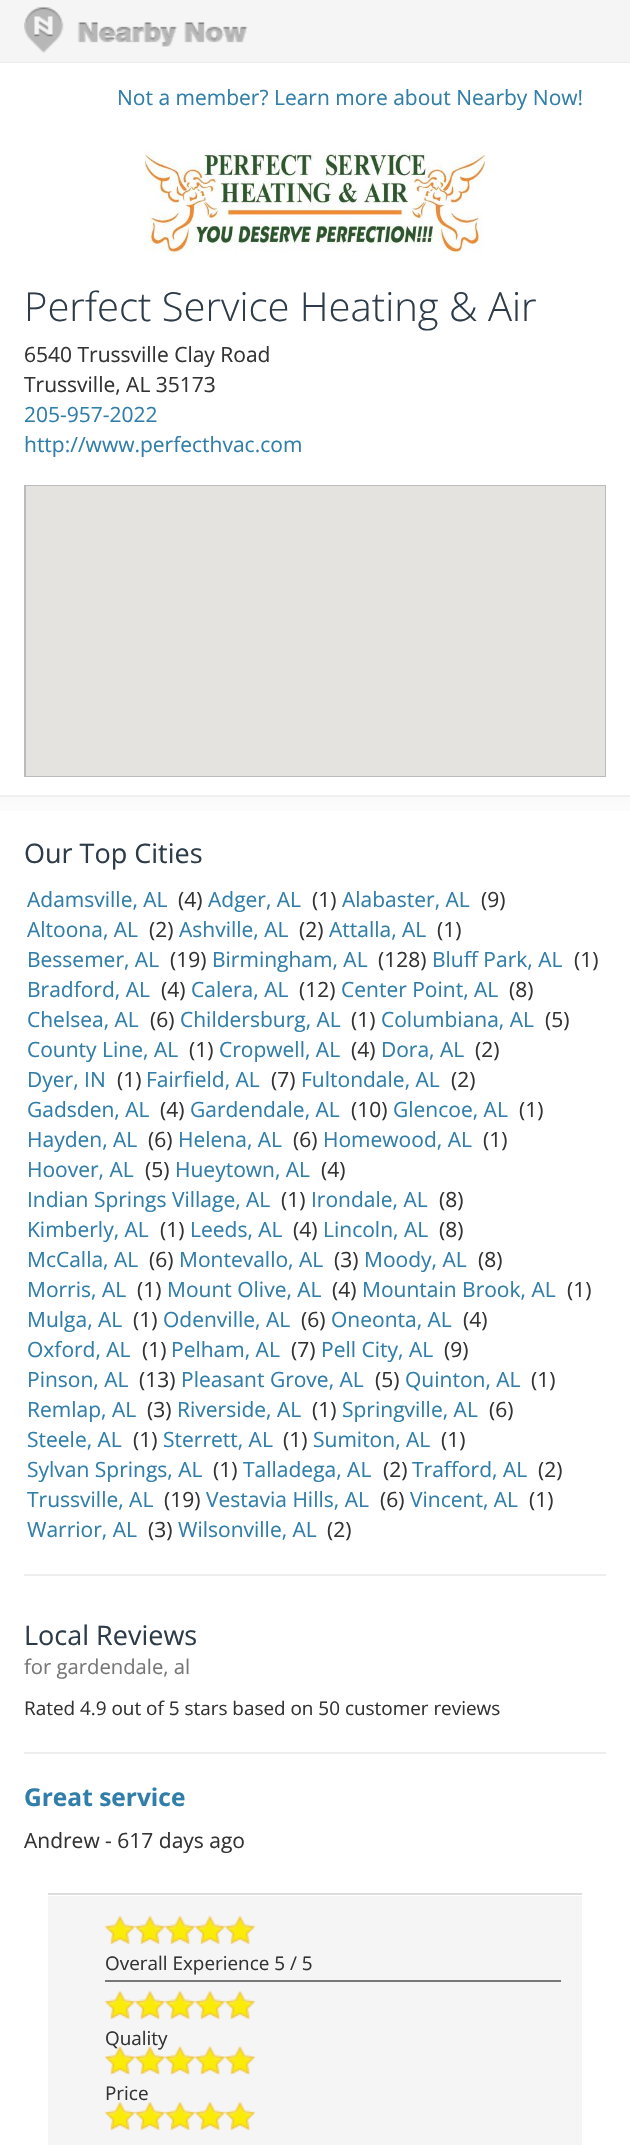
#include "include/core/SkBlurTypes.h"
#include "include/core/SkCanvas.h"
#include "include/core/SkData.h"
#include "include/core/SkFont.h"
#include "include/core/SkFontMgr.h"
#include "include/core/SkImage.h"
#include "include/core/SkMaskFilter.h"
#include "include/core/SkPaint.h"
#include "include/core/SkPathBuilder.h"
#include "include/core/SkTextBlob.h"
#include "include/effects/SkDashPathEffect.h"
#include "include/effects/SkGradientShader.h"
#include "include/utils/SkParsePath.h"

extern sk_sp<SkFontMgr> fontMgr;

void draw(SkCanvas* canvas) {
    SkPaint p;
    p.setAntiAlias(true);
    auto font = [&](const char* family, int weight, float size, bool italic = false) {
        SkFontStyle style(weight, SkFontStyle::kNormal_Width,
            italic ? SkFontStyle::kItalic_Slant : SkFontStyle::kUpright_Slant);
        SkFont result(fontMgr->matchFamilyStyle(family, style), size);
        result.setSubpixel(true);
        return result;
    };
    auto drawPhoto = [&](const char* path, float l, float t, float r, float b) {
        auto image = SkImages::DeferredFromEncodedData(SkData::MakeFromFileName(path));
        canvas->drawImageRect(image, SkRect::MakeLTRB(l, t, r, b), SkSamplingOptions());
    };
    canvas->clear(0xFFFFFFFF);
    p.setColor(0xFFEAECED);
    canvas->drawRect(SkRect::MakeLTRB(0, 62, 630, 63), p);
    p.setColor(0xFFF5F5F5);
    canvas->drawRect(SkRect::MakeLTRB(0, 0, 630, 62), p);
    drawPhoto("media/1.png", 24, 7, 248, 53);
    auto font1 = font("Open Sans", 400, 21);
    p.setColor(0xFF307EA9);
    canvas->drawString("Not a member? Learn more about Nearby Now!", 117, 105, font1, p);
    drawPhoto("media/2.png", 144, 151, 493, 255);
    auto font2 = font("Open Sans", 300, 40);
    p.setColor(0xFF2D3C48);
    canvas->drawString("Perfect Service Heating & Air", 24, 321, font2, p);
    p.setColor(0xFF333333);
    canvas->drawString("6540 Trussville Clay Road", 24, 362, font1, p);
    canvas->drawString("Trussville, AL 35173", 24, 392, font1, p);
    p.setColor(0xFF307EA9);
    canvas->drawString("205-957-2022", 24, 422, font1, p);
    canvas->drawString("http://www.perfecthvac.com", 24, 452, font1, p);
    p.setStyle(SkPaint::kStroke_Style);
    p.setStrokeWidth(2);
    p.setColor(0xFFBBBBBB);
    canvas->drawRect(SkRect::MakeLTRB(25, 486, 605, 776), p);
    p.setStyle(SkPaint::kFill_Style);
    p.setColor(0xFFE5E3DF);
    canvas->drawRect(SkRect::MakeLTRB(26, 486, 605, 776), p);
    {
        const SkColor colors[] = {0xFFFAFAFA, 0xFFFFFFFF};
        const float stops[] = {0, 1};
        const SkPoint ends[] = {{315, 797}, {315, 825}};
        p.setShader(SkGradientShader::MakeLinear(ends, colors, stops, 2, SkTileMode::kClamp));
        p.setAlpha(255);
    }
    canvas->drawRect(SkRect::MakeLTRB(0, 797, 630, 811), p);
    p.setShader(nullptr);
    p.setColor(0xFFEFF0F1);
    canvas->drawRect(SkRect::MakeLTRB(0, 795, 630, 797), p);
    auto font3 = font("Open Sans", 400, 27);
    p.setColor(0xFF2D3C48);
    canvas->drawString("Our Top Cities", 24, 863, font3, p);
    p.setColor(0xFF307EA9);
    canvas->drawString("Adamsville, AL", 27, 907, font1, p);
    p.setColor(0xFF333333);
    canvas->drawString("(4)", 178, 907, font1, p);
    p.setColor(0xFF307EA9);
    canvas->drawString("Adger, AL", 208, 907, font1, p);
    p.setColor(0xFF333333);
    canvas->drawString("(1)", 312, 907, font1, p);
    p.setColor(0xFF307EA9);
    canvas->drawString("Alabaster, AL", 342, 907, font1, p);
    p.setColor(0xFF333333);
    canvas->drawString("(9)", 481, 907, font1, p);
    p.setColor(0xFF307EA9);
    canvas->drawString("Altoona, AL", 27, 937, font1, p);
    p.setColor(0xFF333333);
    canvas->drawString("(2)", 149, 937, font1, p);
    p.setColor(0xFF307EA9);
    canvas->drawString("Ashville, AL", 179, 937, font1, p);
    p.setColor(0xFF333333);
    canvas->drawString("(2)", 299, 937, font1, p);
    p.setColor(0xFF307EA9);
    canvas->drawString("Attalla, AL", 329, 937, font1, p);
    p.setColor(0xFF333333);
    canvas->drawString("(1)", 437, 937, font1, p);
    p.setColor(0xFF307EA9);
    canvas->drawString("Bessemer, AL", 27, 967, font1, p);
    p.setColor(0xFF333333);
    canvas->drawString("(19)", 170, 967, font1, p);
    p.setColor(0xFF307EA9);
    canvas->drawString("Birmingham, AL", 212, 967, font1, p);
    p.setColor(0xFF333333);
    canvas->drawString("(128)", 378, 967, font1, p);
    p.setColor(0xFF307EA9);
    canvas->drawString("Bluff Park, AL", 432, 967, font1, p);
    p.setColor(0xFF333333);
    canvas->drawString("(1)", 574, 967, font1, p);
    p.setColor(0xFF307EA9);
    canvas->drawString("Bradford, AL", 27, 997, font1, p);
    p.setColor(0xFF333333);
    canvas->drawString("(4)", 161, 997, font1, p);
    p.setColor(0xFF307EA9);
    canvas->drawString("Calera, AL", 191, 997, font1, p);
    p.setColor(0xFF333333);
    canvas->drawString("(12)", 299, 997, font1, p);
    p.setColor(0xFF307EA9);
    canvas->drawString("Center Point, AL", 341, 997, font1, p);
    p.setColor(0xFF333333);
    canvas->drawString("(8)", 509, 997, font1, p);
    p.setColor(0xFF307EA9);
    canvas->drawString("Chelsea, AL", 27, 1027, font1, p);
    p.setColor(0xFF333333);
    canvas->drawString("(6)", 150, 1027, font1, p);
    p.setColor(0xFF307EA9);
    canvas->drawString("Childersburg, AL", 180, 1027, font1, p);
    p.setColor(0xFF333333);
    canvas->drawString("(1)", 351, 1027, font1, p);
    p.setColor(0xFF307EA9);
    canvas->drawString("Columbiana, AL", 381, 1027, font1, p);
    p.setColor(0xFF333333);
    canvas->drawString("(5)", 545, 1027, font1, p);
    p.setColor(0xFF307EA9);
    canvas->drawString("County Line, AL", 27, 1057, font1, p);
    p.setColor(0xFF333333);
    canvas->drawString("(1)", 189, 1057, font1, p);
    p.setColor(0xFF307EA9);
    canvas->drawString("Cropwell, AL", 219, 1057, font1, p);
    p.setColor(0xFF333333);
    canvas->drawString("(4)", 351, 1057, font1, p);
    p.setColor(0xFF307EA9);
    canvas->drawString("Dora, AL", 381, 1057, font1, p);
    p.setColor(0xFF333333);
    canvas->drawString("(2)", 475, 1057, font1, p);
    p.setColor(0xFF307EA9);
    canvas->drawString("Dyer, IN", 27, 1087, font1, p);
    p.setColor(0xFF333333);
    canvas->drawString("(1)", 117, 1087, font1, p);
    p.setColor(0xFF307EA9);
    canvas->drawString("Fairfield, AL", 146, 1087, font1, p);
    p.setColor(0xFF333333);
    canvas->drawString("(7)", 271, 1087, font1, p);
    p.setColor(0xFF307EA9);
    canvas->drawString("Fultondale, AL", 301, 1087, font1, p);
    p.setColor(0xFF333333);
    canvas->drawString("(2)", 451, 1087, font1, p);
    p.setColor(0xFF307EA9);
    canvas->drawString("Gadsden, AL", 27, 1117, font1, p);
    p.setColor(0xFF333333);
    canvas->drawString("(4)", 160, 1117, font1, p);
    p.setColor(0xFF307EA9);
    canvas->drawString("Gardendale, AL", 190, 1117, font1, p);
    p.setColor(0xFF333333);
    canvas->drawString("(10)", 351, 1117, font1, p);
    p.setColor(0xFF307EA9);
    canvas->drawString("Glencoe, AL", 393, 1117, font1, p);
    p.setColor(0xFF333333);
    canvas->drawString("(1)", 519, 1117, font1, p);
    p.setColor(0xFF307EA9);
    canvas->drawString("Hayden, AL", 27, 1147, font1, p);
    p.setColor(0xFF333333);
    canvas->drawString("(6)", 148, 1147, font1, p);
    p.setColor(0xFF307EA9);
    canvas->drawString("Helena, AL", 178, 1147, font1, p);
    p.setColor(0xFF333333);
    canvas->drawString("(6)", 293, 1147, font1, p);
    p.setColor(0xFF307EA9);
    canvas->drawString("Homewood, AL", 323, 1147, font1, p);
    p.setColor(0xFF333333);
    canvas->drawString("(1)", 483, 1147, font1, p);
    p.setColor(0xFF307EA9);
    canvas->drawString("Hoover, AL", 27, 1177, font1, p);
    p.setColor(0xFF333333);
    canvas->drawString("(5)", 145, 1177, font1, p);
    p.setColor(0xFF307EA9);
    canvas->drawString("Hueytown, AL", 175, 1177, font1, p);
    p.setColor(0xFF333333);
    canvas->drawString("(4)", 321, 1177, font1, p);
    p.setColor(0xFF307EA9);
    canvas->drawString("Indian Springs Village, AL", 27, 1207, font1, p);
    p.setColor(0xFF333333);
    canvas->drawString("(1)", 281, 1207, font1, p);
    p.setColor(0xFF307EA9);
    canvas->drawString("Irondale, AL", 311, 1207, font1, p);
    p.setColor(0xFF333333);
    canvas->drawString("(8)", 439, 1207, font1, p);
    p.setColor(0xFF307EA9);
    canvas->drawString("Kimberly, AL", 27, 1237, font1, p);
    p.setColor(0xFF333333);
    canvas->drawString("(1)", 160, 1237, font1, p);
    p.setColor(0xFF307EA9);
    canvas->drawString("Leeds, AL", 190, 1237, font1, p);
    p.setColor(0xFF333333);
    canvas->drawString("(4)", 293, 1237, font1, p);
    p.setColor(0xFF307EA9);
    canvas->drawString("Lincoln, AL", 323, 1237, font1, p);
    p.setColor(0xFF333333);
    canvas->drawString("(8)", 439, 1237, font1, p);
    p.setColor(0xFF307EA9);
    canvas->drawString("McCalla, AL", 27, 1267, font1, p);
    p.setColor(0xFF333333);
    canvas->drawString("(6)", 149, 1267, font1, p);
    p.setColor(0xFF307EA9);
    canvas->drawString("Montevallo, AL", 179, 1267, font1, p);
    p.setColor(0xFF333333);
    canvas->drawString("(3)", 334, 1267, font1, p);
    p.setColor(0xFF307EA9);
    canvas->drawString("Moody, AL", 364, 1267, font1, p);
    p.setColor(0xFF333333);
    canvas->drawString("(8)", 478, 1267, font1, p);
    p.setColor(0xFF307EA9);
    canvas->drawString("Morris, AL", 27, 1297, font1, p);
    p.setColor(0xFF333333);
    canvas->drawString("(1)", 137, 1297, font1, p);
    p.setColor(0xFF307EA9);
    canvas->drawString("Mount Olive, AL", 167, 1297, font1, p);
    p.setColor(0xFF333333);
    canvas->drawString("(4)", 332, 1297, font1, p);
    p.setColor(0xFF307EA9);
    canvas->drawString("Mountain Brook, AL", 362, 1297, font1, p);
    p.setColor(0xFF333333);
    canvas->drawString("(1)", 567, 1297, font1, p);
    p.setColor(0xFF307EA9);
    canvas->drawString("Mulga, AL", 27, 1327, font1, p);
    p.setColor(0xFF333333);
    canvas->drawString("(1)", 133, 1327, font1, p);
    p.setColor(0xFF307EA9);
    canvas->drawString("Odenville, AL", 163, 1327, font1, p);
    p.setColor(0xFF333333);
    canvas->drawString("(6)", 301, 1327, font1, p);
    p.setColor(0xFF307EA9);
    canvas->drawString("Oneonta, AL", 331, 1327, font1, p);
    p.setColor(0xFF333333);
    canvas->drawString("(4)", 463, 1327, font1, p);
    p.setColor(0xFF307EA9);
    canvas->drawString("Oxford, AL", 27, 1357, font1, p);
    p.setColor(0xFF333333);
    canvas->drawString("(1)", 142, 1357, font1, p);
    p.setColor(0xFF307EA9);
    canvas->drawString("Pelham, AL", 171, 1357, font1, p);
    p.setColor(0xFF333333);
    canvas->drawString("(7)", 291, 1357, font1, p);
    p.setColor(0xFF307EA9);
    canvas->drawString("Pell City, AL", 321, 1357, font1, p);
    p.setColor(0xFF333333);
    canvas->drawString("(9)", 444, 1357, font1, p);
    p.setColor(0xFF307EA9);
    canvas->drawString("Pinson, AL", 27, 1387, font1, p);
    p.setColor(0xFF333333);
    canvas->drawString("(13)", 139, 1387, font1, p);
    p.setColor(0xFF307EA9);
    canvas->drawString("Pleasant Grove, AL", 181, 1387, font1, p);
    p.setColor(0xFF333333);
    canvas->drawString("(5)", 375, 1387, font1, p);
    p.setColor(0xFF307EA9);
    canvas->drawString("Quinton, AL", 405, 1387, font1, p);
    p.setColor(0xFF333333);
    canvas->drawString("(1)", 531, 1387, font1, p);
    p.setColor(0xFF307EA9);
    canvas->drawString("Remlap, AL", 27, 1417, font1, p);
    p.setColor(0xFF333333);
    canvas->drawString("(3)", 147, 1417, font1, p);
    p.setColor(0xFF307EA9);
    canvas->drawString("Riverside, AL", 177, 1417, font1, p);
    p.setColor(0xFF333333);
    canvas->drawString("(1)", 312, 1417, font1, p);
    p.setColor(0xFF307EA9);
    canvas->drawString("Springville, AL", 342, 1417, font1, p);
    p.setColor(0xFF333333);
    canvas->drawString("(6)", 489, 1417, font1, p);
    p.setColor(0xFF307EA9);
    canvas->drawString("Steele, AL", 27, 1447, font1, p);
    p.setColor(0xFF333333);
    canvas->drawString("(1)", 133, 1447, font1, p);
    p.setColor(0xFF307EA9);
    canvas->drawString("Sterrett, AL", 163, 1447, font1, p);
    p.setColor(0xFF333333);
    canvas->drawString("(1)", 283, 1447, font1, p);
    p.setColor(0xFF307EA9);
    canvas->drawString("Sumiton, AL", 313, 1447, font1, p);
    p.setColor(0xFF333333);
    canvas->drawString("(1)", 441, 1447, font1, p);
    p.setColor(0xFF307EA9);
    canvas->drawString("Sylvan Springs, AL", 27, 1477, font1, p);
    p.setColor(0xFF333333);
    canvas->drawString("(1)", 213, 1477, font1, p);
    p.setColor(0xFF307EA9);
    canvas->drawString("Talladega, AL", 243, 1477, font1, p);
    p.setColor(0xFF333333);
    canvas->drawString("(2)", 383, 1477, font1, p);
    p.setColor(0xFF307EA9);
    canvas->drawString("Trafford, AL", 412, 1477, font1, p);
    p.setColor(0xFF333333);
    canvas->drawString("(2)", 538, 1477, font1, p);
    p.setColor(0xFF307EA9);
    canvas->drawString("Trussville, AL", 27, 1507, font1, p);
    p.setColor(0xFF333333);
    canvas->drawString("(19)", 164, 1507, font1, p);
    p.setColor(0xFF307EA9);
    canvas->drawString("Vestavia Hills, AL", 206, 1507, font1, p);
    p.setColor(0xFF333333);
    canvas->drawString("(6)", 380, 1507, font1, p);
    p.setColor(0xFF307EA9);
    canvas->drawString("Vincent, AL", 410, 1507, font1, p);
    p.setColor(0xFF333333);
    canvas->drawString("(1)", 529, 1507, font1, p);
    p.setColor(0xFF307EA9);
    canvas->drawString("Warrior, AL", 27, 1537, font1, p);
    p.setColor(0xFF333333);
    canvas->drawString("(3)", 148, 1537, font1, p);
    p.setColor(0xFF307EA9);
    canvas->drawString("Wilsonville, AL", 178, 1537, font1, p);
    p.setColor(0xFF333333);
    canvas->drawString("(2)", 327, 1537, font1, p);
    p.setColor(0xFFEEEEEE);
    canvas->drawRect(SkRect::MakeLTRB(24, 1574, 606, 1576), p);
    p.setColor(0xFF2D3C48);
    canvas->drawString("Local Reviews", 24, 1645, font3, p);
    auto font4 = font("Open Sans", 400, 20.25f);
    p.setColor(0xFF777777);
    canvas->drawString("for gardendale, al", 24, 1674, font4, p);
    auto font5 = font("Open Sans", 400, 18.9f);
    p.setColor(0xFF333333);
    canvas->drawString("Rated 4.9 out of 5 stars based on 50 customer reviews", 24, 1715, font5, p);
    p.setColor(0xFFEEEEEE);
    canvas->drawRect(SkRect::MakeLTRB(24, 1752, 606, 1754), p);
    auto font6 = font("Open Sans", 700, 24.5f);
    p.setColor(0xFF307EA9);
    canvas->drawString("Great service", 24, 1806, font6, p);
    p.setColor(0xFF333333);
    canvas->drawString("Andrew - 617 days ago", 24, 1848, font1, p);
    {
        const struct { float l, t, r, b; SkColor color; } items[] = {
            {48, 1896, 582, 2145, 0xFFF5F5F5},
            {48, 1893, 582, 1895, 0xFFDDDDDD},
            {105, 1980, 561, 1982, 0xFF777777},
        };
        for (auto [l, t, r, b, color] : items) {
            p.setColor(color);
            canvas->drawRect(SkRect::MakeLTRB(l, t, r, b), p);
        }
    }
    drawPhoto("media/3.png", 105, 1915, 255, 1944);
    p.setColor(0xFF333333);
    canvas->drawString("Overall Experience 5 / 5", 105, 1970, font5, p);
    drawPhoto("media/3.png", 105, 1990, 255, 2019);
    drawPhoto("media/4.png", 105, 2046, 255, 2075);
    canvas->drawString("Quality", 105, 2045, font5, p);
    canvas->drawString("Price", 105, 2100, font5, p);
    drawPhoto("media/3.png", 105, 2101, 255, 2130);
}
